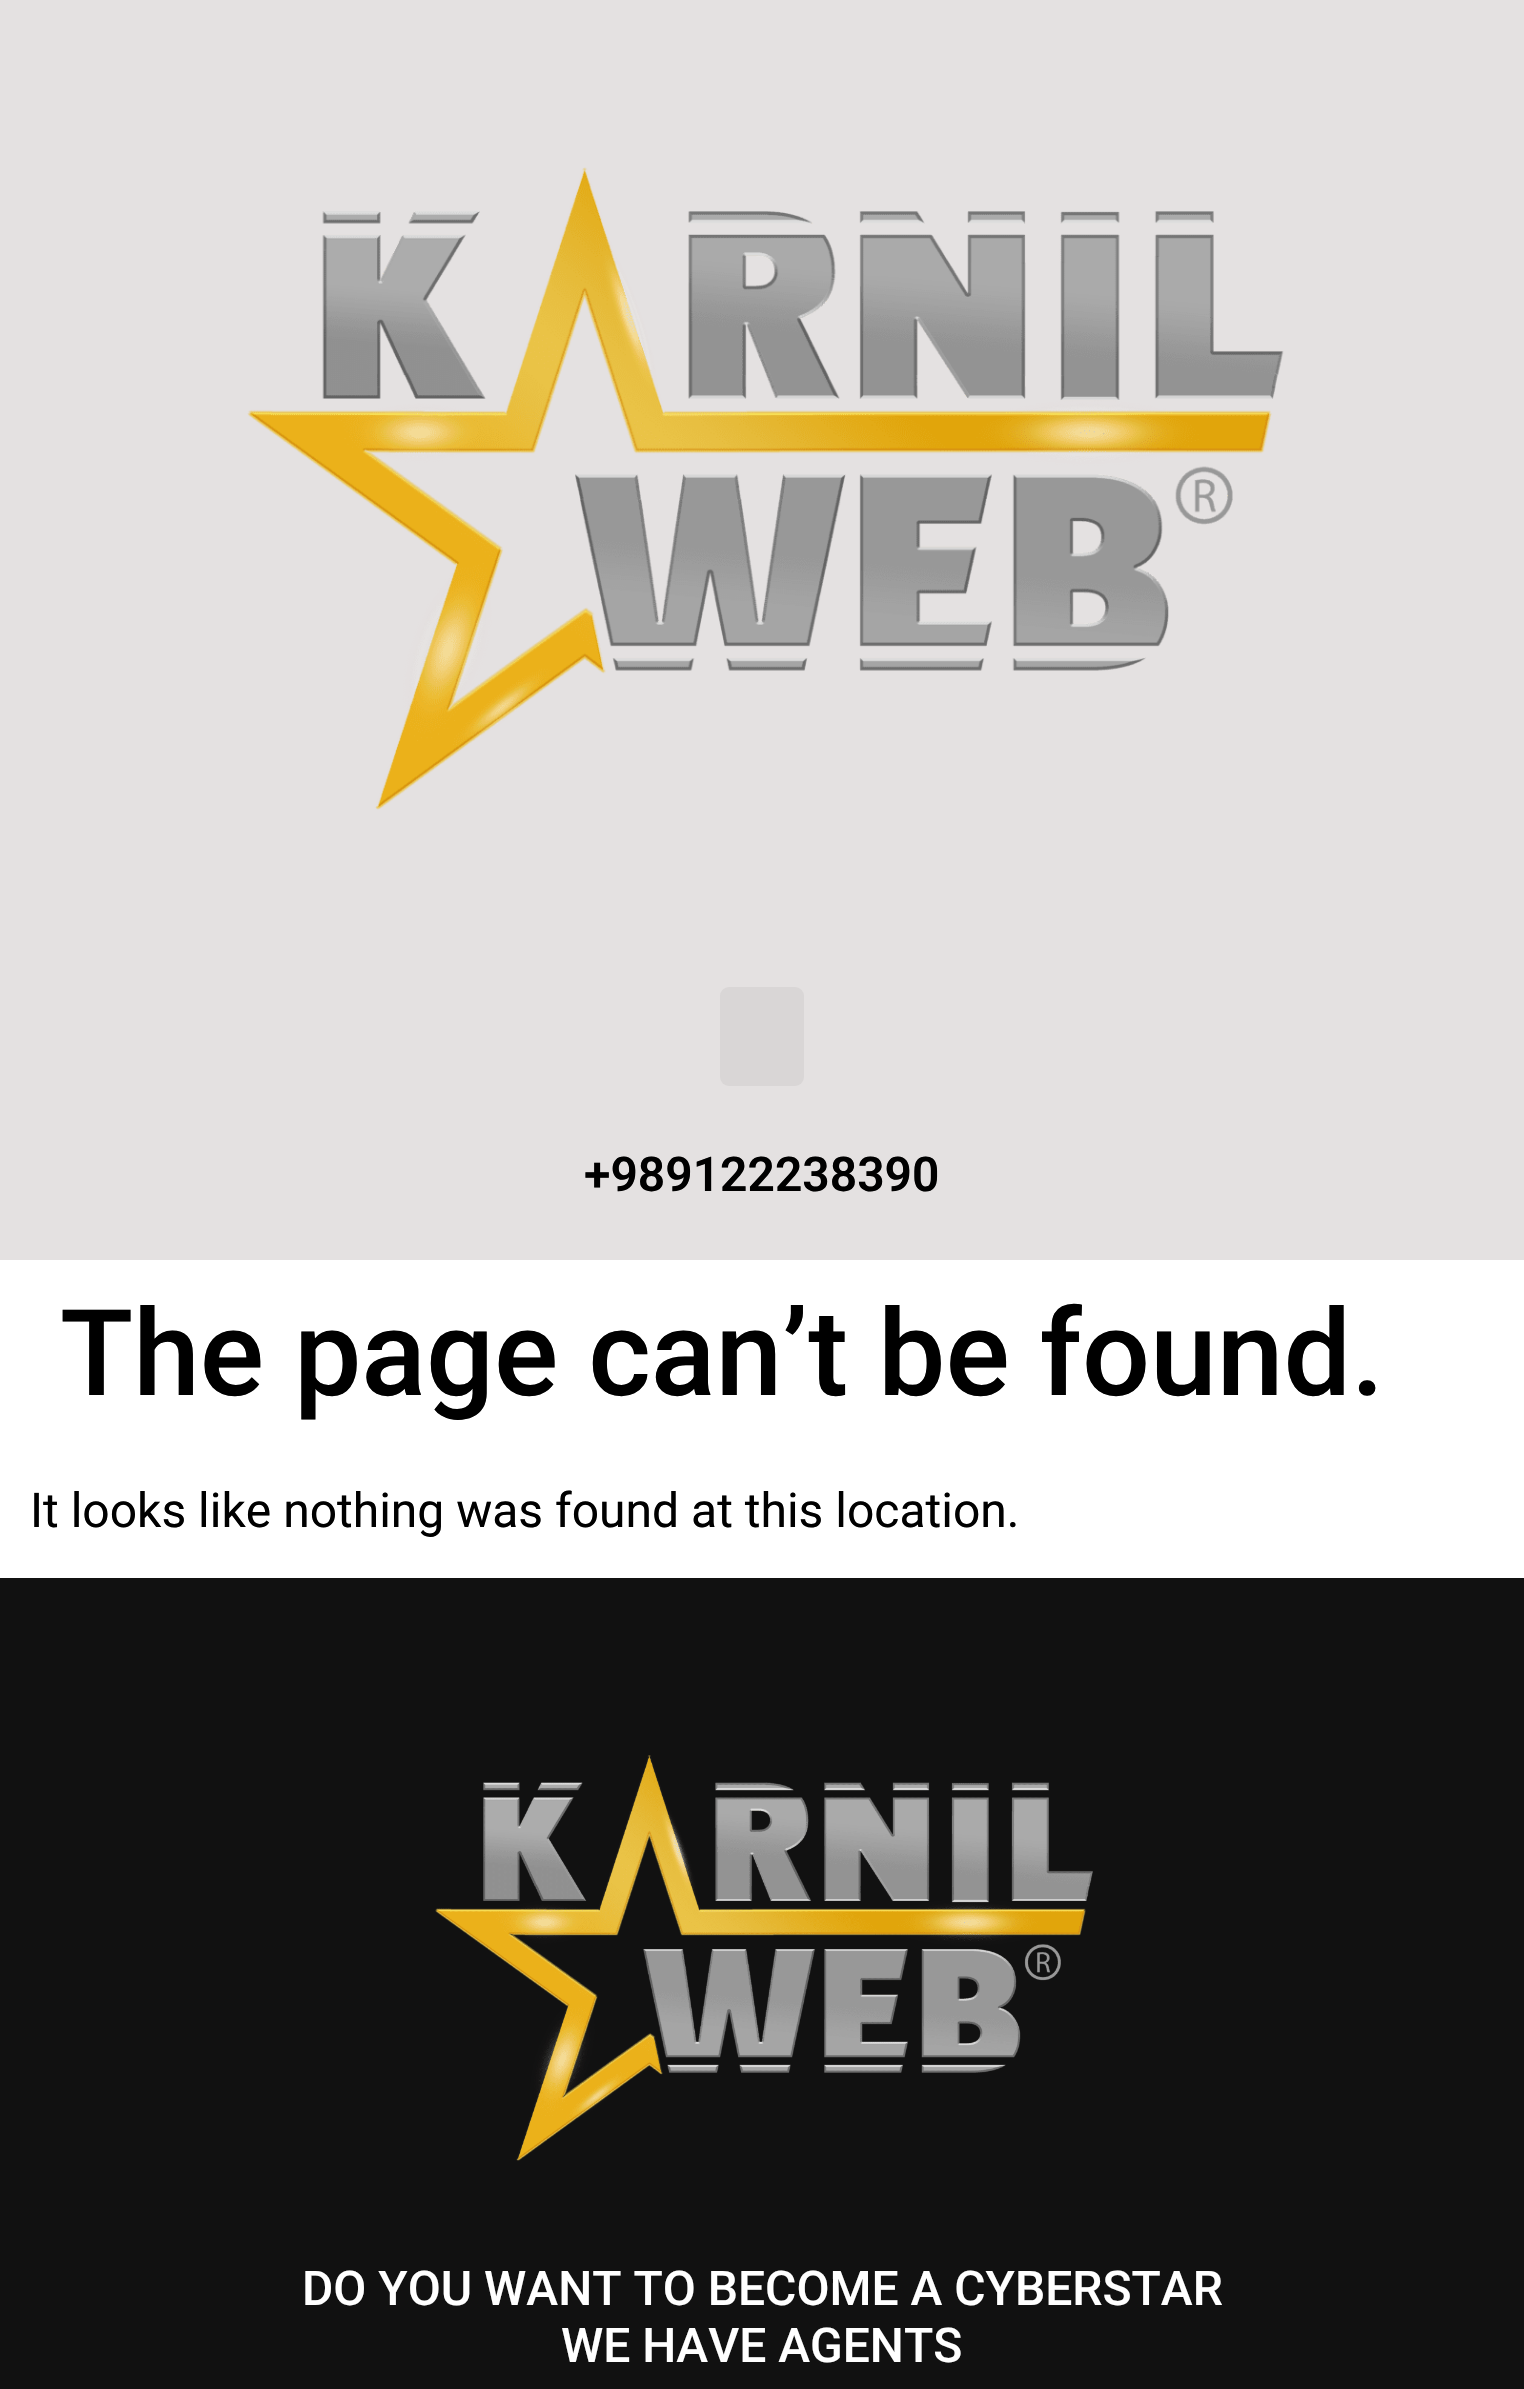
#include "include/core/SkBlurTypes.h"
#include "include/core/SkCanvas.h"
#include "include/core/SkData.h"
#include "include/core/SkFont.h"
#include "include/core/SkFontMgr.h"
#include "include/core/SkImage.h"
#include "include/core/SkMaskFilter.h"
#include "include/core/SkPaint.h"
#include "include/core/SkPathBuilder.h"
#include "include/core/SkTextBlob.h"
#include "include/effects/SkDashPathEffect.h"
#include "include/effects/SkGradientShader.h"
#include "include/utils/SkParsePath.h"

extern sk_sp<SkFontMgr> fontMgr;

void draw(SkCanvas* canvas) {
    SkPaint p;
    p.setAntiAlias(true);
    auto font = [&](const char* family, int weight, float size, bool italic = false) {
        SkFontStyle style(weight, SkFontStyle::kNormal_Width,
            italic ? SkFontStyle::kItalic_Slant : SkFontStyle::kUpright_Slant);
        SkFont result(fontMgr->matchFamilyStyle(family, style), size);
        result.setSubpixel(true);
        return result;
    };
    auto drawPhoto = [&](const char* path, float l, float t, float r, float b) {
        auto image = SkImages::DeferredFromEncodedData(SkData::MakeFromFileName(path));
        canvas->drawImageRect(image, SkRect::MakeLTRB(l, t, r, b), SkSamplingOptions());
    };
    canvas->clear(0xFFFFFFFF);
    p.setColor(0xFFE4E1E1);
    canvas->drawRect(SkRect::MakeLTRB(0, 0, 1524, 1260), p);
    drawPhoto("media/1.png", 247, 167, 1284, 810);
    p.setColor(0xFFD9D6D6);
    canvas->drawRoundRect(SkRect::MakeLTRB(720, 987, 804, 1086), 9, 9, p);
    auto font1 = font("Roboto", 600, 48);
    p.setColor(0xFF000000);
    canvas->drawString("+989122238390", 584, 1191, font1, p);
    auto font2 = font("Roboto", 500, 120);
    canvas->drawString("The page can’t be found.", 60, 1395, font2, p);
    auto font3 = font("Roboto", 400, 48);
    canvas->drawString("It looks like nothing was found at this location.", 30, 1527, font3, p);
    p.setColor(0xFF111111);
    canvas->drawRect(SkRect::MakeLTRB(0, 1578, 1524, 2389), p);
    drawPhoto("media/2.png", 435, 1755, 1093, 2161);
    auto font4 = font("Roboto", 500, 48);
    p.setColor(0xFFFFFFFF);
    canvas->drawString("DO YOU WANT TO BECOME A CYBERSTAR", 302, 2305, font4, p);
    canvas->drawString("WE HAVE AGENTS", 561, 2362, font4, p);
}
